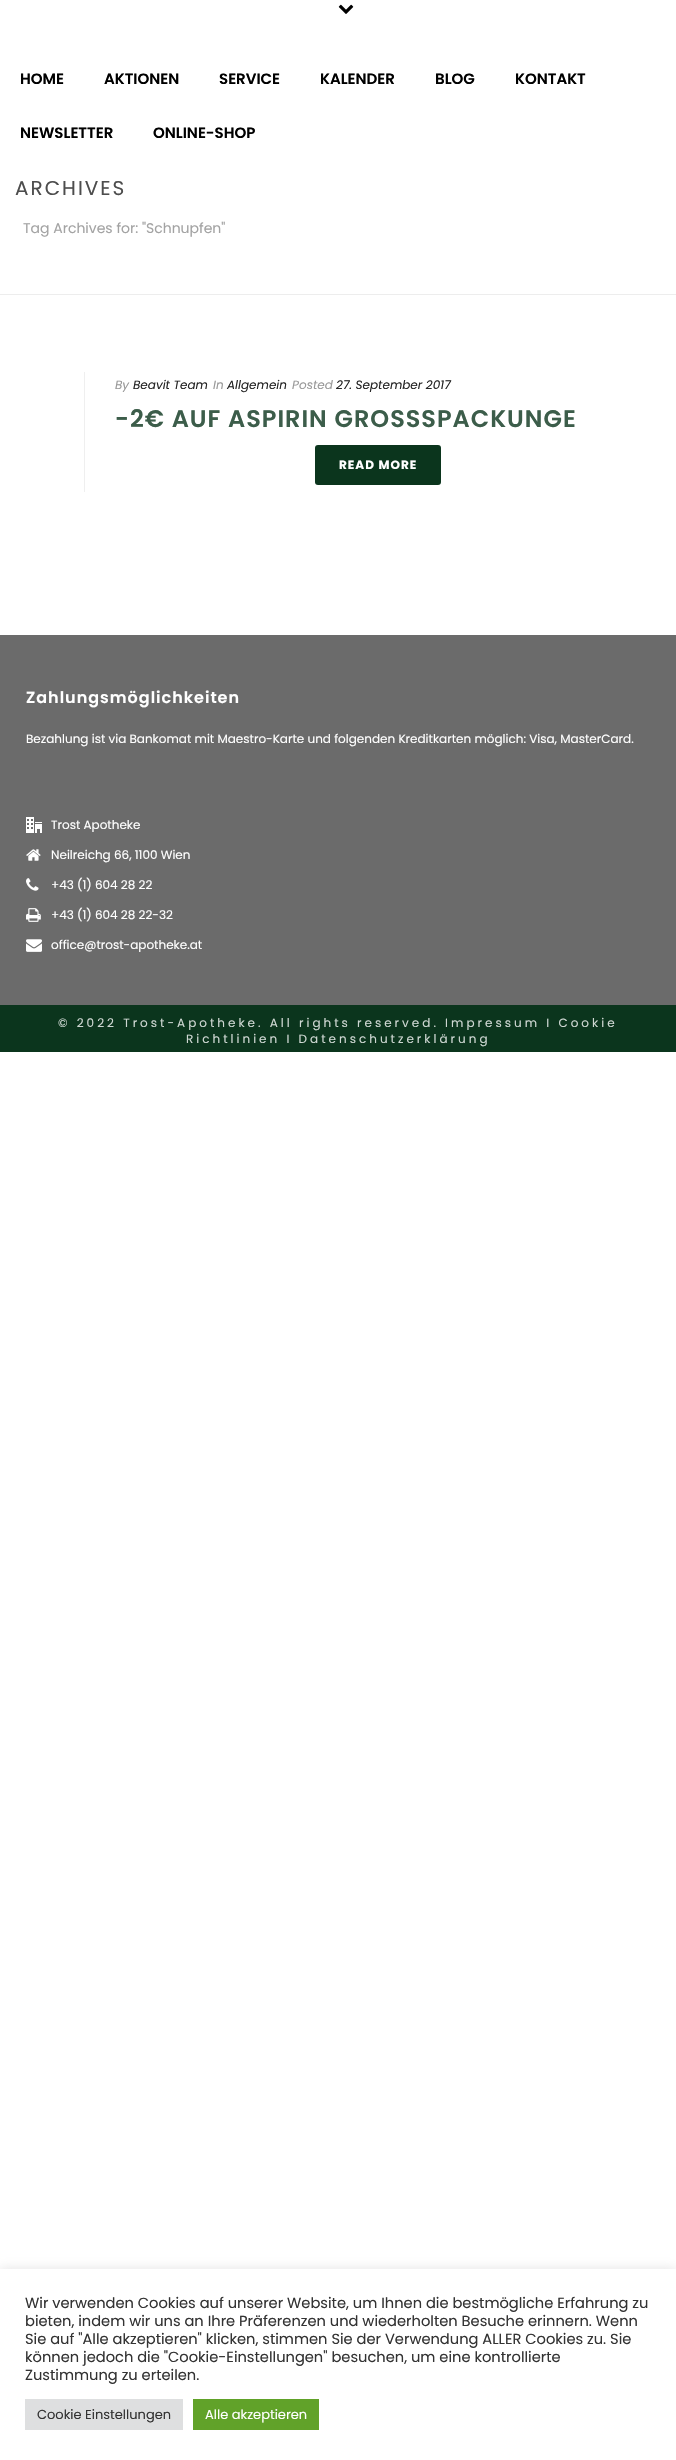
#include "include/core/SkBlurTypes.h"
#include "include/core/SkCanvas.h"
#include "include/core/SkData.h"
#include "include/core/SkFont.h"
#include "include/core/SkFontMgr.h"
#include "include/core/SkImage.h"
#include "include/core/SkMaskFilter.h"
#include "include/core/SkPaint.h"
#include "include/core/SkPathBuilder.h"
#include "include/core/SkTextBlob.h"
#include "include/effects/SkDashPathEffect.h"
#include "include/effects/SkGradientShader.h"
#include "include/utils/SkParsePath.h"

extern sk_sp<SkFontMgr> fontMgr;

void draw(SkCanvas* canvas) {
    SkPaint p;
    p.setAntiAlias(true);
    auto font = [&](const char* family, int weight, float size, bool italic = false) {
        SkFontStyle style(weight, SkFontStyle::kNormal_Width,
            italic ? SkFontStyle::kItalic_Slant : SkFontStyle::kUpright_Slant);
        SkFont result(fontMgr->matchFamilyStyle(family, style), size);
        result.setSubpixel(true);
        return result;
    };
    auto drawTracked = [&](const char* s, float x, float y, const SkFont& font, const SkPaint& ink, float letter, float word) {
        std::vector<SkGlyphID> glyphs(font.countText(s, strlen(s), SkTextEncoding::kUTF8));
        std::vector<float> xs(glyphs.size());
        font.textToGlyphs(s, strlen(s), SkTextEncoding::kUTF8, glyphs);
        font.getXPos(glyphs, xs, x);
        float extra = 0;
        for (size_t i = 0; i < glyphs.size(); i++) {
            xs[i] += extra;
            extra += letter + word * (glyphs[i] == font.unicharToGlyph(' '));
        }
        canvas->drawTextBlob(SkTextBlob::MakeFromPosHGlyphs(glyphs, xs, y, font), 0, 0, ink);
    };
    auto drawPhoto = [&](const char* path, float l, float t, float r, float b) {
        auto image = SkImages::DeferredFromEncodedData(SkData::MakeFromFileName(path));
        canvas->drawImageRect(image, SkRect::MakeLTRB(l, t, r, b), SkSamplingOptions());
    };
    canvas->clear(0xFFFFFFFF);
    p.setColor(0xFFEDEDED);
    canvas->drawRect(SkRect::MakeLTRB(0, 294, 676, 295), p);
    drawPhoto("media/1.png", 338, 4, 354, 14);
    auto font1 = font("Poppins", 600, 15);
    p.setColor(0xFF000000);
    {
        const struct { const char* s; float x, y; } items[] = {
            {"HOME", 20, 84},
            {"AKTIONEN", 104, 84},
            {"SERVICE", 219, 84},
            {"KALENDER", 320, 84},
            {"BLOG", 435, 84},
            {"KONTAKT", 515, 84},
            {"NEWSLETTER", 20, 138},
            {"ONLINE-SHOP", 153, 138},
        };
        for (auto [s, x, y] : items) {
            canvas->drawString(s, x, y, font1, p);
        }
    }
    auto font2 = font("Poppins", 400, 20);
    p.setColor(0xFF4D4D4D);
    drawTracked("ARCHIVES", 15, 195, font2, p, 2, 0);
    auto font3 = font("Poppins", 400, 14);
    p.setColor(0xFFA3A3A3);
    canvas->drawString("Tag Archives for: \"Schnupfen\"", 23, 233, font3, p);
    p.setColor(0xFFEFEFEF);
    canvas->drawRect(SkRect::MakeLTRB(84, 372, 85, 492), p);
    auto font4 = font("Poppins", 400, 12, true);
    p.setColor(0xFF999999);
    canvas->drawString("By", 115, 389, font4, p);
    p.setColor(0xFF252525);
    canvas->drawString("Beavit Team", 133, 389, font4, p);
    p.setColor(0xFF999999);
    canvas->drawString("In", 213, 389, font4, p);
    p.setColor(0xFF252525);
    canvas->drawString("Allgemein", 227, 389, font4, p);
    p.setColor(0xFF999999);
    canvas->drawString("Posted", 292, 389, font4, p);
    p.setColor(0xFF252525);
    canvas->drawString("27. September 2017", 336, 389, font4, p);
    auto font5 = font("Poppins", 600, 24);
    p.setColor(0xFF3C5D4A);
    drawTracked("-2€ AUF ASPIRIN GROSSSPACKUNGE", 115, 427, font5, p, 1, 0);
    p.setColor(0xFF0B351D);
    canvas->drawRoundRect(SkRect::MakeLTRB(315, 445, 441, 485), 3, 3, p);
    auto font6 = font("Poppins", 700, 12);
    p.setColor(0xFFFFFFFF);
    drawTracked("READ MORE", 339, 469, font6, p, 1, 0);
    p.setColor(0xFF6B6B6B);
    canvas->drawRect(SkRect::MakeLTRB(0, 635, 676, 1005), p);
    auto font7 = font("Poppins", 600, 16);
    p.setColor(0xFFFFFFFF);
    drawTracked("Zahlungsmöglichkeiten", 26, 703, font7, p, 1, 0);
    auto font8 = font("Poppins", 400, 12);
    canvas->drawString("Bezahlung ist via Bankomat mit Maestro-Karte und folgenden Kreditkarten möglich: Visa, MasterCard.", 26, 743, font8, p);
    drawPhoto("media/2.png", 26, 817, 42, 833);
    canvas->drawString("Trost Apotheke", 51, 829, font8, p);
    drawPhoto("media/3.png", 26, 849, 41, 861);
    canvas->drawString("Neilreichg 66, 1100 Wien", 51, 859, font8, p);
    drawPhoto("media/4.png", 26, 878, 39, 891);
    canvas->drawString("+43 (1) 604 28 22", 51, 889, font8, p);
    drawPhoto("media/5.png", 26, 908, 41, 922);
    canvas->drawString("+43 (1) 604 28 22-32", 51, 919, font8, p);
    drawPhoto("media/6.png", 26, 939, 42, 952);
    canvas->drawString("office@trost-apotheke.at", 51, 949, font8, p);
    p.setColor(0xFF0B351D);
    canvas->drawRect(SkRect::MakeLTRB(0, 1005, 676, 1052), p);
    p.setColor(0xFFCED7D2);
    drawTracked("© 2022 Trost-Apotheke. All rights reserved. Impressum I Cookie", 58, 1027, font8, p, 3, 0);
    drawTracked("Richtlinien I Datenschutzerklärung", 186, 1043, font8, p, 3, 0);
    p.setColor(0x4DACABAB);
    p.setMaskFilter(SkMaskFilter::MakeBlur(kNormal_SkBlurStyle, 5));
    canvas->drawRect(SkRect::MakeLTRB(0, 2268, 676, 2459), p);
    p.setMaskFilter(nullptr);
    p.setColor(0xFFFFFFFF);
    canvas->drawRect(SkRect::MakeLTRB(0, 2269, 676, 2460), p);
    auto font9 = font("Poppins", 400, 14.65f);
    p.setColor(0xFF333333);
    {
        const struct { const char* s; float x, y; } items[] = {
            {"Wir verwenden Cookies auf unserer Website, um Ihnen die bestmögliche Erfahrung zu", 25, 2308},
            {"bieten, indem wir uns an Ihre Präferenzen und wiederholten Besuche erinnern. Wenn", 25, 2326},
            {"Sie auf \"Alle akzeptieren\" klicken, stimmen Sie der Verwendung ALLER Cookies zu. Sie", 25, 2344},
            {"können jedoch die \"Cookie-Einstellungen\" besuchen, um eine kontrollierte", 25, 2362},
            {"Zustimmung zu erteilen.", 25, 2380},
        };
        for (auto [s, x, y] : items) {
            canvas->drawString(s, x, y, font9, p);
        }
    }
    p.setColor(0xFFDEDFE0);
    canvas->drawRect(SkRect::MakeLTRB(25, 2399, 183, 2430), p);
    auto font10 = font("Poppins", 400, 13);
    p.setColor(0xFF333333);
    canvas->drawString("Cookie Einstellungen", 37, 2419, font10, p);
    p.setColor(0xFF61A229);
    canvas->drawRect(SkRect::MakeLTRB(193, 2399, 319, 2430), p);
    p.setColor(0xFFFFFFFF);
    canvas->drawString("Alle akzeptieren", 205, 2419, font10, p);
}
